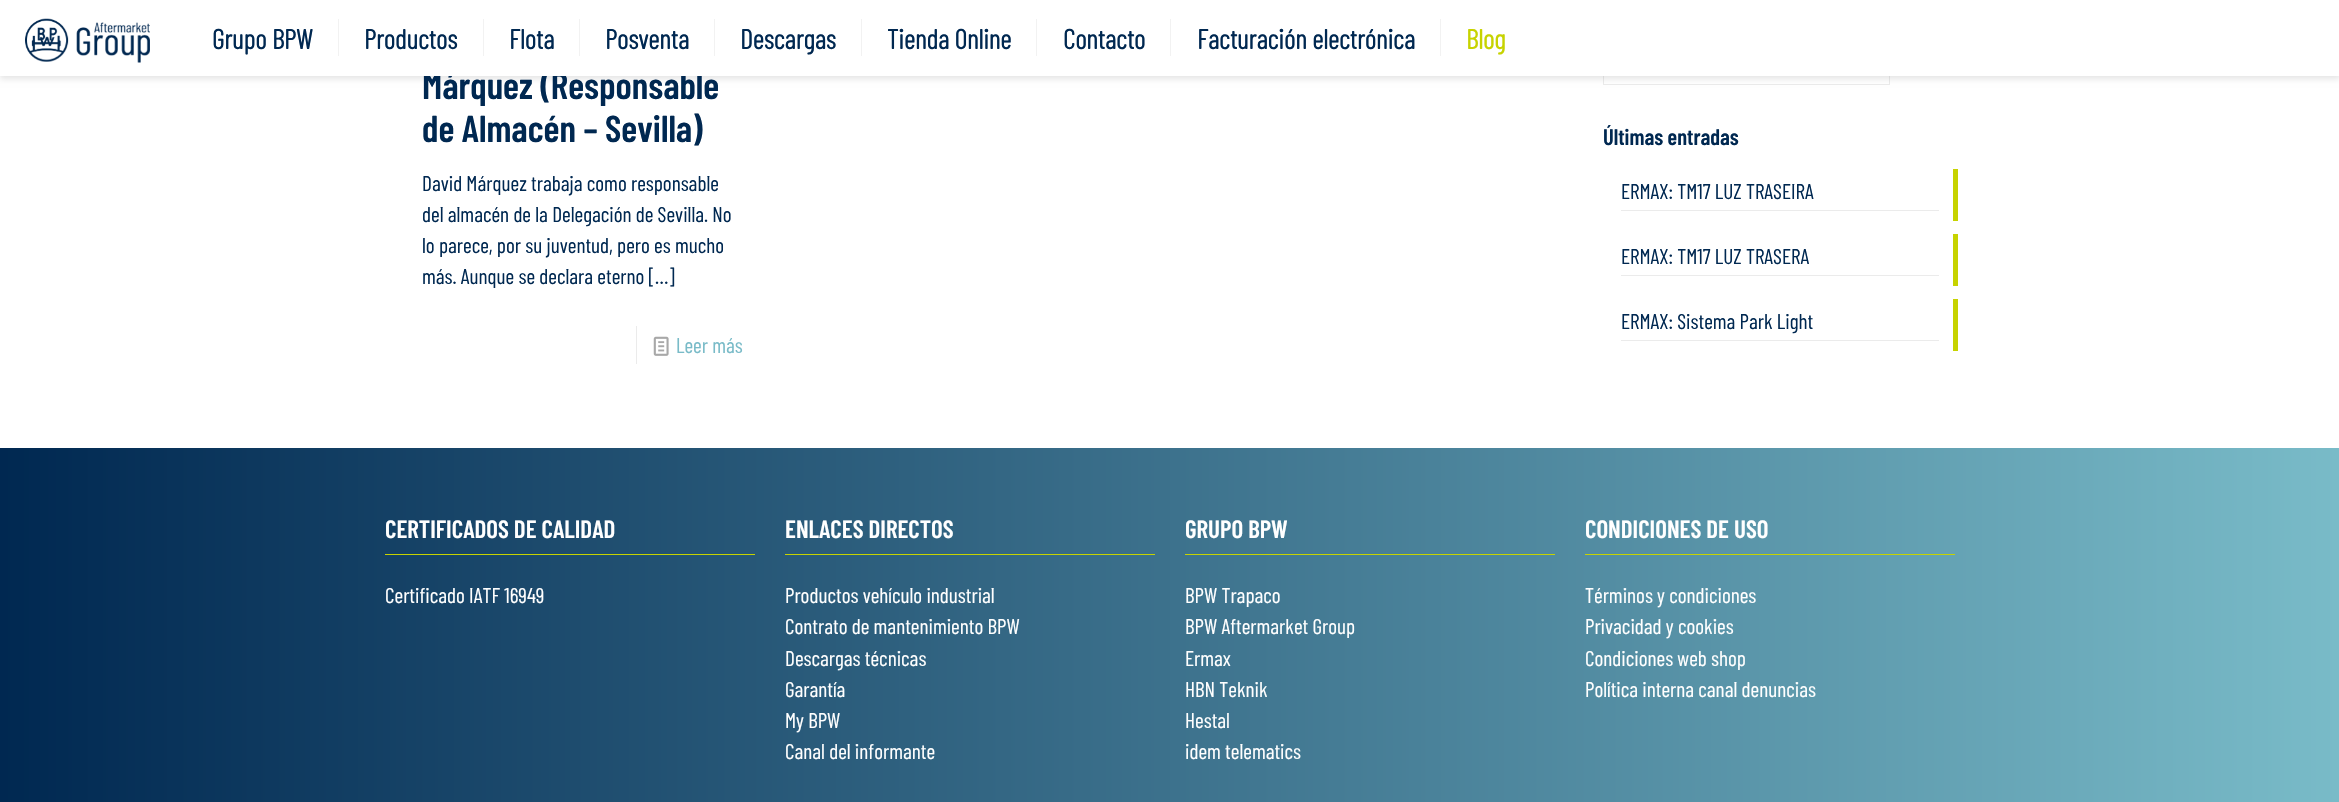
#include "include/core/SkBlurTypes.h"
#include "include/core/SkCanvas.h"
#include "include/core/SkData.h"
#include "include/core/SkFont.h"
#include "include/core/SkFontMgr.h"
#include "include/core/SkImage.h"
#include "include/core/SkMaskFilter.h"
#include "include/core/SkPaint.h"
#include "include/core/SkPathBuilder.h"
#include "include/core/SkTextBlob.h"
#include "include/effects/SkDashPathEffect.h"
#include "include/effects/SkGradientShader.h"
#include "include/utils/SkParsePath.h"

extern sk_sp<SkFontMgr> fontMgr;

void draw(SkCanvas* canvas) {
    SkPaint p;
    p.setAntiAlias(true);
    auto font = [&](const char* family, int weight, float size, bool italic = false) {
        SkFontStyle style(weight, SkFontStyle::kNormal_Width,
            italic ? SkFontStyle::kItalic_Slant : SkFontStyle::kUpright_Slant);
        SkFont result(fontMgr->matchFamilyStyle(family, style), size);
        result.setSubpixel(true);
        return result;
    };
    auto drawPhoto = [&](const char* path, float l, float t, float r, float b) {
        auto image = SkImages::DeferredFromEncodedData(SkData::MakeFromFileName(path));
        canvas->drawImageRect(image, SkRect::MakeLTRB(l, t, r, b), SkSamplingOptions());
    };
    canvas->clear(0xFFFFFFFF);
    p.setStyle(SkPaint::kStroke_Style);
    p.setStrokeWidth(1);
    p.setColor(0xFFEBEBEB);
    canvas->drawRect(SkRect::MakeLTRB(1603.5f, 35.5f, 1889.5f, 84.5f), p);
    p.setStyle(SkPaint::kFill_Style);
    p.setColor(0x1A000000);
    p.setMaskFilter(SkMaskFilter::MakeBlur(kNormal_SkBlurStyle, 3));
    canvas->drawRect(SkRect::MakeLTRB(0, 3, 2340, 79), p);
    p.setMaskFilter(nullptr);
    auto font1 = font("Barlow Condensed", 600, 37.5f);
    p.setColor(0xFF002851);
    canvas->drawString("Márquez (Responsable", 422, 99, font1, p);
    p.setColor(0xFFFFFFFF);
    canvas->drawRect(SkRect::MakeLTRB(0, 0, 2339, 76), p);
    drawPhoto("media/1.png", 25, 18, 150, 63);
    p.setColor(0xFFF2F2F2);
    canvas->drawRect(SkRect::MakeLTRB(338, 19, 339, 56), p);
    auto font2 = font("Barlow Condensed", 700, 27.5f);
    p.setColor(0xFF002851);
    canvas->drawString("Grupo BPW", 212, 49, font2, p);
    p.setColor(0xFFF2F2F2);
    canvas->drawRect(SkRect::MakeLTRB(483, 19, 484, 56), p);
    p.setColor(0xFF002851);
    canvas->drawString("Productos", 364, 49, font2, p);
    p.setColor(0xFFF2F2F2);
    canvas->drawRect(SkRect::MakeLTRB(579, 19, 580, 56), p);
    p.setColor(0xFF002851);
    canvas->drawString("Flota", 509, 49, font2, p);
    p.setColor(0xFFF2F2F2);
    canvas->drawRect(SkRect::MakeLTRB(714, 19, 715, 56), p);
    p.setColor(0xFF002851);
    canvas->drawString("Posventa", 605, 49, font2, p);
    p.setColor(0xFFF2F2F2);
    canvas->drawRect(SkRect::MakeLTRB(861, 19, 862, 56), p);
    p.setColor(0xFF002851);
    canvas->drawString("Descargas", 740, 49, font2, p);
    p.setColor(0xFFF2F2F2);
    canvas->drawRect(SkRect::MakeLTRB(1036, 19, 1037, 56), p);
    p.setColor(0xFF002851);
    canvas->drawString("Tienda Online", 887, 49, font2, p);
    p.setColor(0xFFF2F2F2);
    canvas->drawRect(SkRect::MakeLTRB(1170, 19, 1171, 56), p);
    p.setColor(0xFF002851);
    canvas->drawString("Contacto", 1063, 49, font2, p);
    p.setColor(0xFFF2F2F2);
    canvas->drawRect(SkRect::MakeLTRB(1440, 19, 1441, 56), p);
    p.setColor(0xFF002851);
    canvas->drawString("Facturación electrónica", 1197, 49, font2, p);
    p.setColor(0xFFC7D300);
    canvas->drawString("Blog", 1466, 49, font2, p);
    p.setColor(0xFF002851);
    canvas->drawString("de Almacén – Sevilla)", 422, 142, font1, p);
    auto font3 = font("Barlow Condensed", 400, 21.25f);
    {
        const struct { const char* s; float x, y; } items[] = {
            {"David Márquez trabaja como responsable", 422, 191},
            {"del almacén de la Delegación de Sevilla. No", 422, 222},
            {"lo parece, por su juventud, pero es mucho", 422, 253},
            {"más. Aunque se declara eterno […]", 422, 284},
        };
        for (auto [s, x, y] : items) {
            canvas->drawString(s, x, y, font3, p);
        }
    }
    p.setColor(0xFFEBEBEB);
    canvas->drawRect(SkRect::MakeLTRB(636, 326, 637, 364), p);
    drawPhoto("media/2.png", 653, 336, 669, 356);
    p.setColor(0xFF79BBC8);
    canvas->drawString("Leer más", 676, 353, font3, p);
    auto font4 = font("Barlow Condensed", 600, 22.5f);
    p.setColor(0xFF002851);
    canvas->drawString("Últimas entradas", 1603, 145, font4, p);
    p.setColor(0xFFEBEBEB);
    canvas->drawRect(SkRect::MakeLTRB(1621, 210, 1939, 211), p);
    p.setColor(0xFF002851);
    canvas->drawString("ERMAX: TM17 LUZ TRASEIRA", 1621, 199, font3, p);
    p.setColor(0xFFC7D300);
    canvas->drawRect(SkRect::MakeLTRB(1953, 169, 1958, 221), p);
    p.setColor(0xFFEBEBEB);
    canvas->drawRect(SkRect::MakeLTRB(1621, 275, 1939, 276), p);
    p.setColor(0xFF002851);
    canvas->drawString("ERMAX: TM17 LUZ TRASERA", 1621, 264, font3, p);
    p.setColor(0xFFC7D300);
    canvas->drawRect(SkRect::MakeLTRB(1953, 234, 1958, 286), p);
    p.setColor(0xFFEBEBEB);
    canvas->drawRect(SkRect::MakeLTRB(1621, 340, 1939, 341), p);
    p.setColor(0xFF002851);
    canvas->drawString("ERMAX: Sistema Park Light", 1621, 329, font3, p);
    p.setColor(0xFFC7D300);
    canvas->drawRect(SkRect::MakeLTRB(1953, 299, 1958, 351), p);
    {
        const SkColor colors[] = {0xFF002851, 0xFF79BBC8};
        const float stops[] = {0, 1};
        const SkPoint ends[] = {{0, 639}, {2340, 639}};
        p.setShader(SkGradientShader::MakeLinear(ends, colors, stops, 2, SkTileMode::kClamp));
        p.setAlpha(255);
    }
    canvas->drawRect(SkRect::MakeLTRB(0, 448, 2339, 802), p);
    p.setShader(nullptr);
    p.setColor(0xFFC7D300);
    canvas->drawRect(SkRect::MakeLTRB(385, 554, 755, 555), p);
    auto font5 = font("Barlow Condensed", 600, 25);
    p.setColor(0xFFFFFFFF);
    canvas->drawString("CERTIFICADOS DE CALIDAD", 385, 538, font5, p);
    canvas->drawString("Certificado IATF 16949", 385, 603, font3, p);
    p.setColor(0xFFC7D300);
    canvas->drawRect(SkRect::MakeLTRB(785, 554, 1155, 555), p);
    p.setColor(0xFFFFFFFF);
    canvas->drawString("ENLACES DIRECTOS", 785, 538, font5, p);
    {
        const struct { const char* s; float x, y; } items[] = {
            {"Productos vehículo industrial", 785, 603},
            {"Contrato de mantenimiento BPW", 785, 634},
            {"Descargas técnicas", 785, 666},
            {"Garantía", 785, 697},
            {"My BPW", 785, 728},
            {"Canal del informante", 785, 759},
        };
        for (auto [s, x, y] : items) {
            canvas->drawString(s, x, y, font3, p);
        }
    }
    p.setColor(0xFFC7D300);
    canvas->drawRect(SkRect::MakeLTRB(1185, 554, 1555, 555), p);
    p.setColor(0xFFFFFFFF);
    canvas->drawString("GRUPO BPW", 1185, 538, font5, p);
    {
        const struct { const char* s; float x, y; } items[] = {
            {"BPW Trapaco", 1185, 603},
            {"BPW Aftermarket Group", 1185, 634},
            {"Ermax", 1185, 666},
            {"HBN Teknik", 1185, 697},
            {"Hestal", 1185, 728},
            {"idem telematics", 1185, 759},
        };
        for (auto [s, x, y] : items) {
            canvas->drawString(s, x, y, font3, p);
        }
    }
    p.setColor(0xFFC7D300);
    canvas->drawRect(SkRect::MakeLTRB(1585, 554, 1955, 555), p);
    p.setColor(0xFFFFFFFF);
    canvas->drawString("CONDICIONES DE USO", 1585, 538, font5, p);
    {
        const struct { const char* s; float x, y; } items[] = {
            {"Términos y condiciones", 1585, 603},
            {"Privacidad y cookies", 1585, 634},
            {"Condiciones web shop", 1585, 666},
            {"Política interna canal denuncias", 1585, 697},
        };
        for (auto [s, x, y] : items) {
            canvas->drawString(s, x, y, font3, p);
        }
    }
}
